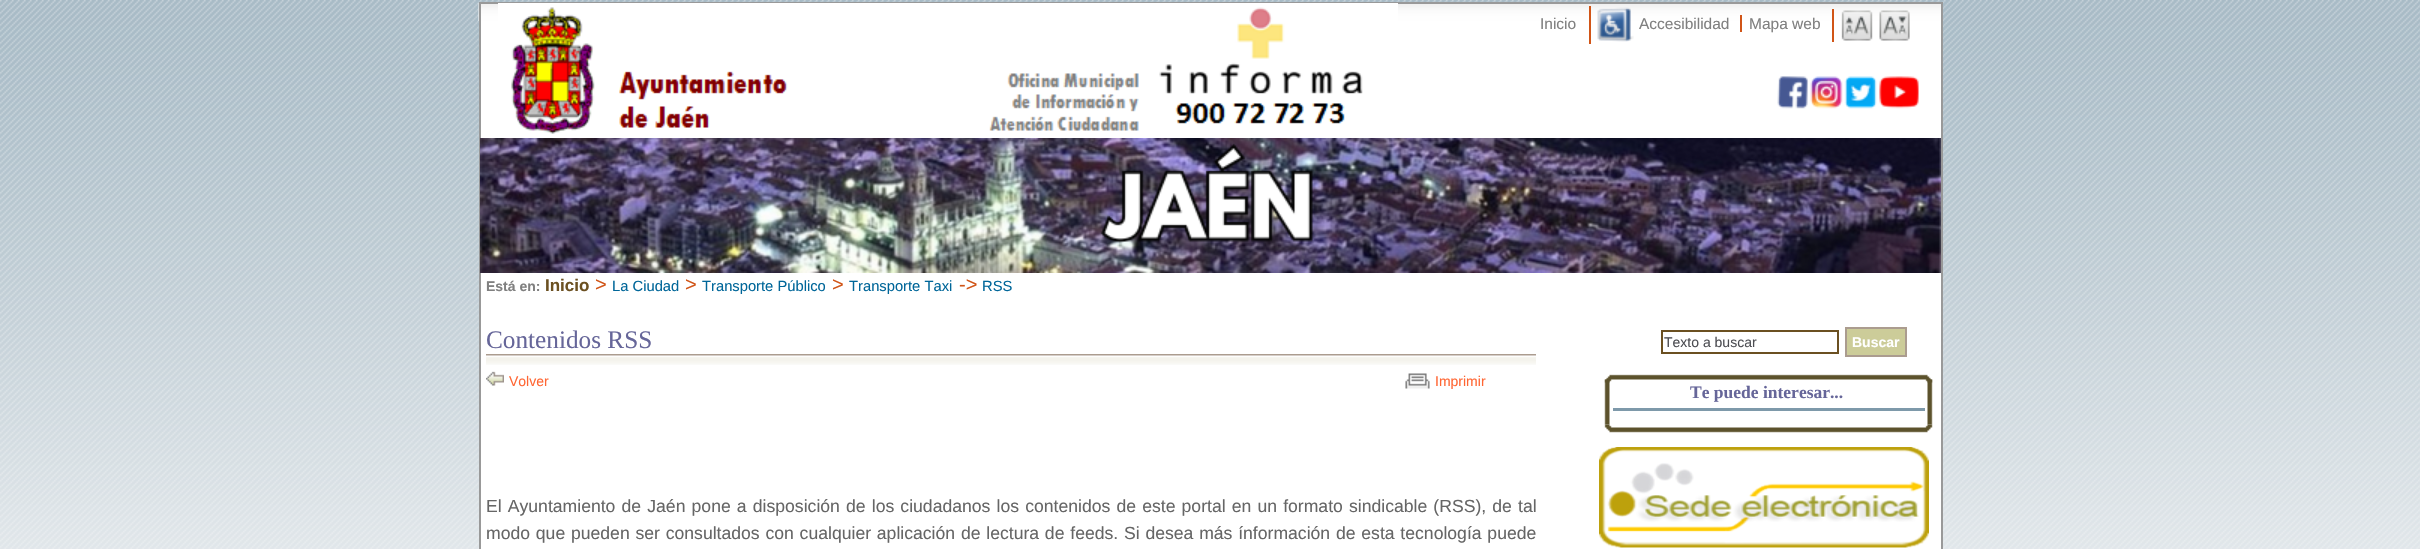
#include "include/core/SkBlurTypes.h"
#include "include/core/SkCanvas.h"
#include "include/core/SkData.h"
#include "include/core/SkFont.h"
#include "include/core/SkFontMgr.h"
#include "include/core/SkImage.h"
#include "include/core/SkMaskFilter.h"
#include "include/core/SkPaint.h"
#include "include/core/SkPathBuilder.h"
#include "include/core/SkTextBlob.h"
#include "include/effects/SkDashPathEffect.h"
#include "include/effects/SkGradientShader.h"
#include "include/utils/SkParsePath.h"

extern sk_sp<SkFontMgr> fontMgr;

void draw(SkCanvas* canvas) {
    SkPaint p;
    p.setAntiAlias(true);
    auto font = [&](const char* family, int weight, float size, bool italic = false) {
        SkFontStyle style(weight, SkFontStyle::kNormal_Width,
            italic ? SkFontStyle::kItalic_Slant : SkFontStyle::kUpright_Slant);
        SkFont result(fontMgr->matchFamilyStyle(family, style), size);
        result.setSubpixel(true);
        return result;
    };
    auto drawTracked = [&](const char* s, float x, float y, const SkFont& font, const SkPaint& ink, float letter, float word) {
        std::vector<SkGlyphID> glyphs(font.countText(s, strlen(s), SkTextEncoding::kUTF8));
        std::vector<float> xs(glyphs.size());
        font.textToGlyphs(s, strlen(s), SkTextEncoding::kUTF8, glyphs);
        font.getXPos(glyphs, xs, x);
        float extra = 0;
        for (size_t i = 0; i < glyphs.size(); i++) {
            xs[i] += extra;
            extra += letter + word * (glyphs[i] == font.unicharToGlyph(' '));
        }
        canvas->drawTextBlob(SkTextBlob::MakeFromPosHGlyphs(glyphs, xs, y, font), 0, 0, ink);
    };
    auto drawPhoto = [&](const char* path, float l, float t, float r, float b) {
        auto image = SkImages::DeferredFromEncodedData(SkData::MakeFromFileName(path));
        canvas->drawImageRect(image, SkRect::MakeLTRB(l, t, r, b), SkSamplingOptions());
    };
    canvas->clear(0xFFFFFFFF);
    drawPhoto("media/1.png", 0, 0, 2420, 549);
    p.setColor(0xFFFFFFFF);
    canvas->drawRect(SkRect::MakeLTRB(481, 21, 1941, 549), p);
    drawPhoto("media/2.png", 478, 3, 1941, 21);
    p.setStyle(SkPaint::kStroke_Style);
    p.setStrokeWidth(2);
    p.setColor(0xFF999999);
    canvas->drawRect(SkRect::MakeLTRB(480, 3, 1942, 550), p);
    drawPhoto("media/3.png", 498, 3, 1398, 134);
    auto font1 = font("Liberation Sans", 400, 15.5f);
    p.setStyle(SkPaint::kFill_Style);
    p.setColor(0xFF808080);
    canvas->drawString("Inicio", 1540, 29, font1, p);
    drawPhoto("media/4.png", 1597, 7, 1634, 42);
    canvas->drawString("Accesibilidad", 1639, 29, font1, p);
    p.setColor(0xFFD15517);
    canvas->drawRect(SkRect::MakeLTRB(1589, 6, 1591, 44), p);
    p.setColor(0xFF808080);
    canvas->drawString("Mapa web", 1749, 29, font1, p);
    p.setColor(0xFFD15517);
    canvas->drawRect(SkRect::MakeLTRB(1740, 15, 1742, 32), p);
    canvas->drawRect(SkRect::MakeLTRB(1832, 9, 1834, 42), p);
    drawPhoto("media/5.png", 1841, 10, 1873, 41);
    drawPhoto("media/6.png", 1879, 10, 1910, 41);
    drawPhoto("media/7.png", 1777, 76, 1919, 109);
    drawPhoto("media/8.png", 480, 138, 1941, 273);
    auto font2 = font("Liberation Sans", 700, 14);
    p.setColor(0xFF808080);
    canvas->drawString("Está en:", 486, 291, font2, p);
    auto font3 = font("Liberation Sans", 700, 17);
    p.setColor(0xFF6B5021);
    canvas->drawString("Inicio", 545, 291, font3, p);
    auto font4 = font("Liberation Sans", 400, 20);
    p.setColor(0xFFD15517);
    canvas->drawString(">", 595, 291, font4, p);
    auto font5 = font("Liberation Sans", 400, 14.75f);
    p.setColor(0xFF006699);
    canvas->drawString("La Ciudad", 612, 291, font5, p);
    p.setColor(0xFFD15517);
    canvas->drawString(">", 685, 291, font4, p);
    p.setColor(0xFF006699);
    canvas->drawString("Transporte Público", 702, 291, font5, p);
    p.setColor(0xFFD15517);
    canvas->drawString(">", 832, 291, font4, p);
    p.setColor(0xFF006699);
    canvas->drawString("Transporte Taxi", 849, 291, font5, p);
    p.setColor(0xFFD15517);
    canvas->drawString("->", 959, 291, font4, p);
    p.setColor(0xFF006699);
    canvas->drawString("RSS", 982, 291, font5, p);
    drawPhoto("media/9.png", 486, 354, 1536, 365);
    auto font6 = font("Liberation Serif", 400, 25.25f);
    p.setColor(0xFF666699);
    canvas->drawString("Contenidos RSS", 486, 348, font6, p);
    drawPhoto("media/10.png", 486, 371, 504, 386);
    auto font7 = font("Liberation Sans", 400, 14);
    p.setColor(0xFFFF6633);
    canvas->drawString("Volver", 509, 386, font7, p);
    drawPhoto("media/11.png", 1405, 373, 1430, 389);
    canvas->drawString("Imprimir", 1435, 386, font7, p);
    auto font8 = font("Liberation Sans", 400, 17.6f);
    p.setColor(0xFF666666);
    drawTracked("El Ayuntamiento de Jaén pone a disposición de los ciudadanos los contenidos de este portal en un formato sindicable (RSS), de tal", 486, 512, font8, p, 0, 1.25f);
    drawTracked("modo que pueden ser consultados con cualquier aplicación de lectura de feeds. Si desea más ínformación de esta tecnología puede", 486, 539, font8, p, 0, 0.9f);
    p.setStyle(SkPaint::kStroke_Style);
    p.setColor(0xFF6B5021);
    canvas->drawRect(SkRect::MakeLTRB(1662, 331, 1838, 353), p);
    p.setStyle(SkPaint::kFill_Style);
    p.setColor(0xFF4D4E53);
    canvas->drawString("Texto a buscar", 1664, 347, font7, p);
    p.setColor(0xFFCCCC99);
    canvas->drawRect(SkRect::MakeLTRB(1846, 328, 1906, 356), p);
    p.setStyle(SkPaint::kStroke_Style);
    p.setColor(0xFFAB9C8F);
    canvas->drawRect(SkRect::MakeLTRB(1846, 328, 1906, 356), p);
    p.setStyle(SkPaint::kFill_Style);
    p.setColor(0xFFFFFFFF);
    canvas->drawString("Buscar", 1852, 347, font2, p);
    drawPhoto("media/12.png", 1604, 374, 1933, 383);
    drawPhoto("media/13.png", 1604, 379, 1933, 425);
    p.setColor(0xFF7E99AA);
    canvas->drawRect(SkRect::MakeLTRB(1613, 408, 1925, 411), p);
    auto font9 = font("Liberation Serif", 700, 17.5f);
    p.setColor(0xFF666699);
    canvas->drawString("Te puede interesar...", 1690, 398, font9, p);
    drawPhoto("media/14.png", 1604, 424, 1933, 433);
    drawPhoto("media/15.png", 1599, 447, 1929, 548);
}
